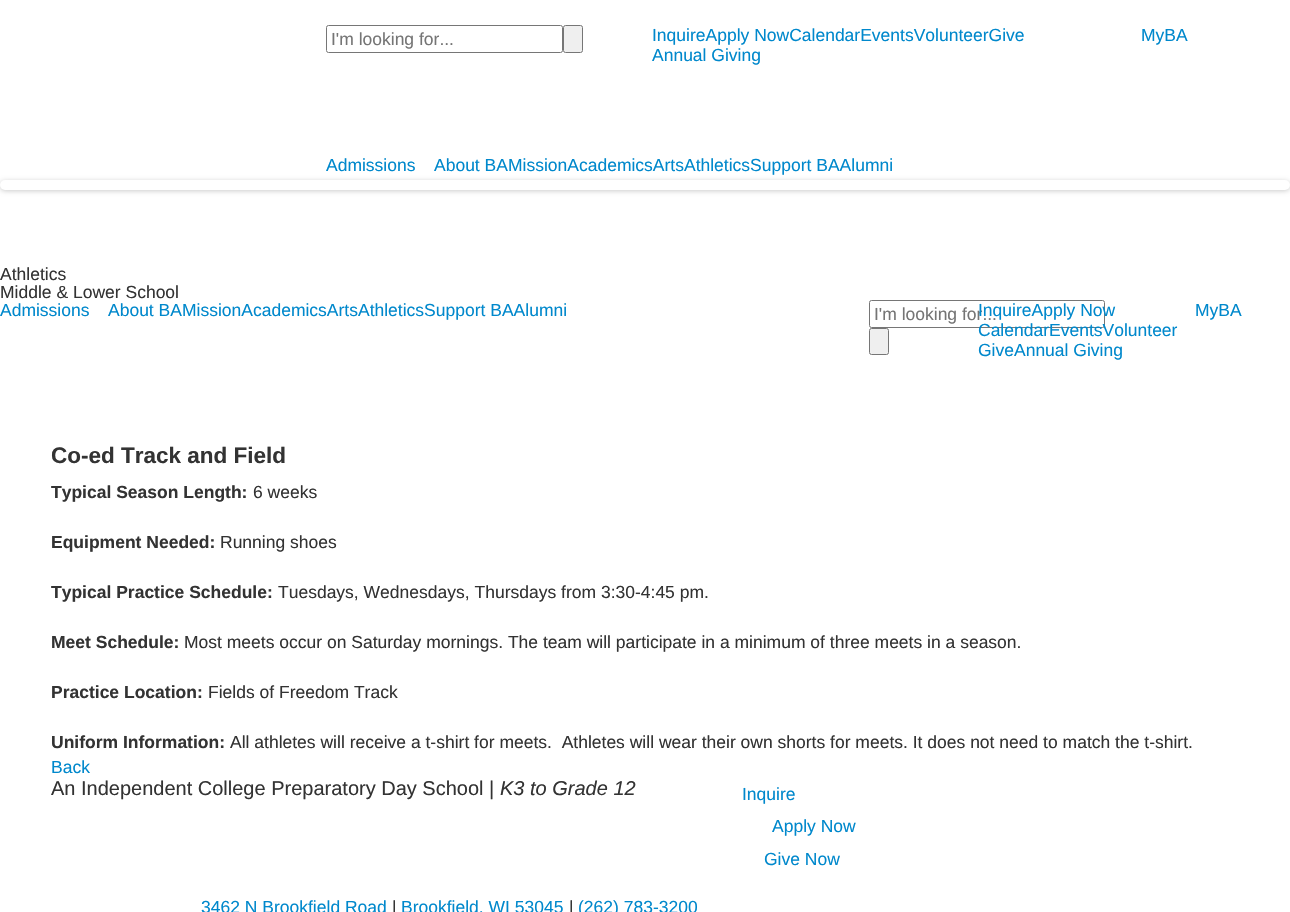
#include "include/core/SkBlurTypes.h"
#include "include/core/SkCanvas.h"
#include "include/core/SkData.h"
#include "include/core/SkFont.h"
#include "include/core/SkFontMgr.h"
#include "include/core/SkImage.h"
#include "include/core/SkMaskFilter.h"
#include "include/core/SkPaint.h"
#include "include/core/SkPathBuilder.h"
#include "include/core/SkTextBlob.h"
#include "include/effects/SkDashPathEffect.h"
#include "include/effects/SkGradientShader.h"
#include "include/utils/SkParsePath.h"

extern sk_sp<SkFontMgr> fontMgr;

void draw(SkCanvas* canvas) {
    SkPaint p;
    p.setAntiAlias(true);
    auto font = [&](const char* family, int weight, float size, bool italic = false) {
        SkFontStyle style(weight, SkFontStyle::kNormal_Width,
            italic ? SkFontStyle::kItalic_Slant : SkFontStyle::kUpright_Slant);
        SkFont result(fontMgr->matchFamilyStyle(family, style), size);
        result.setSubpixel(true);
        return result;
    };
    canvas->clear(0xFFFFFFFF);
    p.setStyle(SkPaint::kStroke_Style);
    p.setStrokeWidth(1);
    p.setColor(0xFF767676);
    canvas->drawRoundRect(SkRect::MakeLTRB(326.5f, 25.5f, 562.5f, 52.5f), 2, 2, p);
    auto font1 = font("Liberation Sans", 400, 17.5f);
    p.setStyle(SkPaint::kFill_Style);
    p.setColor(0xFF757575);
    canvas->drawString("I'm looking for...", 331, 45, font1, p);
    p.setColor(0xFFEFEFEF);
    canvas->drawRoundRect(SkRect::MakeLTRB(563.5f, 25.5f, 582.5f, 52.5f), 2, 2, p);
    p.setStyle(SkPaint::kStroke_Style);
    p.setColor(0xFF767676);
    canvas->drawRoundRect(SkRect::MakeLTRB(563.5f, 25.5f, 582.5f, 52.5f), 2, 2, p);
    p.setStyle(SkPaint::kFill_Style);
    p.setColor(0xFF0088CC);
    {
        const struct { const char* s; float x, y; } items[] = {
            {"InquireApply NowCalendarEventsVolunteerGive", 652, 41},
            {"Annual Giving", 652, 61},
            {"MyBA", 1141, 41},
            {"Admissions", 326, 171},
        };
        for (auto [s, x, y] : items) {
            canvas->drawString(s, x, y, font1, p);
        }
    }
    p.setColor(0x33000000);
    p.setMaskFilter(SkMaskFilter::MakeBlur(kNormal_SkBlurStyle, 2.5f));
    canvas->drawRoundRect(SkRect::MakeLTRB(0, 181, 1290, 191), 5, 5, p);
    p.setMaskFilter(nullptr);
    p.setColor(0xFF0088CC);
    canvas->drawString("About BAMissionAcademicsArtsAthleticsSupport BAAlumni", 434, 171, font1, p);
    p.setColor(0xFFFFFFFF);
    canvas->drawRoundRect(SkRect::MakeLTRB(0, 180, 1290, 190), 5, 5, p);
    p.setColor(0xFF333333);
    canvas->drawString("Athletics", 0, 280, font1, p);
    canvas->drawString("Middle & Lower School", 0, 298, font1, p);
    p.setColor(0xFF0088CC);
    canvas->drawString("Admissions", 0, 316, font1, p);
    canvas->drawString("About BAMissionAcademicsArtsAthleticsSupport BAAlumni", 108, 316, font1, p);
    p.setStyle(SkPaint::kStroke_Style);
    p.setColor(0xFF767676);
    canvas->drawRoundRect(SkRect::MakeLTRB(869.5f, 300.5f, 1104.5f, 327.5f), 2, 2, p);
    p.setStyle(SkPaint::kFill_Style);
    p.setColor(0xFF757575);
    canvas->drawString("I'm looking for...", 874, 320, font1, p);
    p.setColor(0xFFEFEFEF);
    canvas->drawRoundRect(SkRect::MakeLTRB(869.5f, 328.5f, 888.5f, 354.5f), 2, 2, p);
    p.setStyle(SkPaint::kStroke_Style);
    p.setColor(0xFF767676);
    canvas->drawRoundRect(SkRect::MakeLTRB(869.5f, 328.5f, 888.5f, 354.5f), 2, 2, p);
    p.setStyle(SkPaint::kFill_Style);
    p.setColor(0xFF0088CC);
    {
        const struct { const char* s; float x, y; } items[] = {
            {"InquireApply Now", 978, 316},
            {"CalendarEventsVolunteer", 978, 336},
            {"GiveAnnual Giving", 978, 356},
            {"MyBA", 1195, 316},
        };
        for (auto [s, x, y] : items) {
            canvas->drawString(s, x, y, font1, p);
        }
    }
    auto font2 = font("Liberation Sans", 700, 22.5f);
    p.setColor(0xFF333333);
    canvas->drawString("Co-ed Track and Field", 51, 463, font2, p);
    auto font3 = font("Liberation Sans", 700, 17.5f);
    canvas->drawString("Typical Season Length:", 51, 498, font3, p);
    canvas->drawString("6 weeks", 253, 498, font1, p);
    canvas->drawString("Equipment Needed:", 51, 548, font3, p);
    canvas->drawString("Running shoes", 220, 548, font1, p);
    canvas->drawString("Typical Practice Schedule:", 51, 598, font3, p);
    canvas->drawString("Tuesdays, Wednesdays, Thursdays from 3:30-4:45 pm.", 278, 598, font1, p);
    canvas->drawString("Meet Schedule:", 51, 648, font3, p);
    canvas->drawString("Most meets occur on Saturday mornings. The team will participate in a minimum of three meets in a season.", 184, 648, font1, p);
    canvas->drawString("Practice Location:", 51, 698, font3, p);
    canvas->drawString("Fields of Freedom Track", 208, 698, font1, p);
    canvas->drawString("Uniform Information:", 51, 748, font3, p);
    canvas->drawString("All athletes will receive a t-shirt for meets.  Athletes will wear their own shorts for meets. It does not need to match the t-shirt.", 230, 748, font1, p);
    p.setColor(0xFF0088CC);
    canvas->drawString("Back", 51, 773, font1, p);
    auto font4 = font("Liberation Sans", 400, 20);
    p.setColor(0xFF333333);
    canvas->drawString("An Independent College Preparatory Day School |", 51, 795, font4, p);
    auto font5 = font("Liberation Sans", 400, 20, true);
    canvas->drawString("K3 to Grade 12", 500, 795, font5, p);
    p.setColor(0xFF0088CC);
    {
        const struct { const char* s; float x, y; } items[] = {
            {"Inquire", 742, 800},
            {"Apply Now", 772, 832},
            {"Give Now", 764, 865},
            {"3462 N Brookfield Road", 201, 913},
        };
        for (auto [s, x, y] : items) {
            canvas->drawString(s, x, y, font1, p);
        }
    }
    p.setColor(0xFF333333);
    canvas->drawString("|", 392, 913, font1, p);
    p.setColor(0xFF0088CC);
    canvas->drawString("Brookfield, WI 53045", 401, 913, font1, p);
    p.setColor(0xFF333333);
    canvas->drawString("|", 569, 913, font1, p);
    p.setColor(0xFF0088CC);
    canvas->drawString("(262) 783-3200", 578, 913, font1, p);
}
